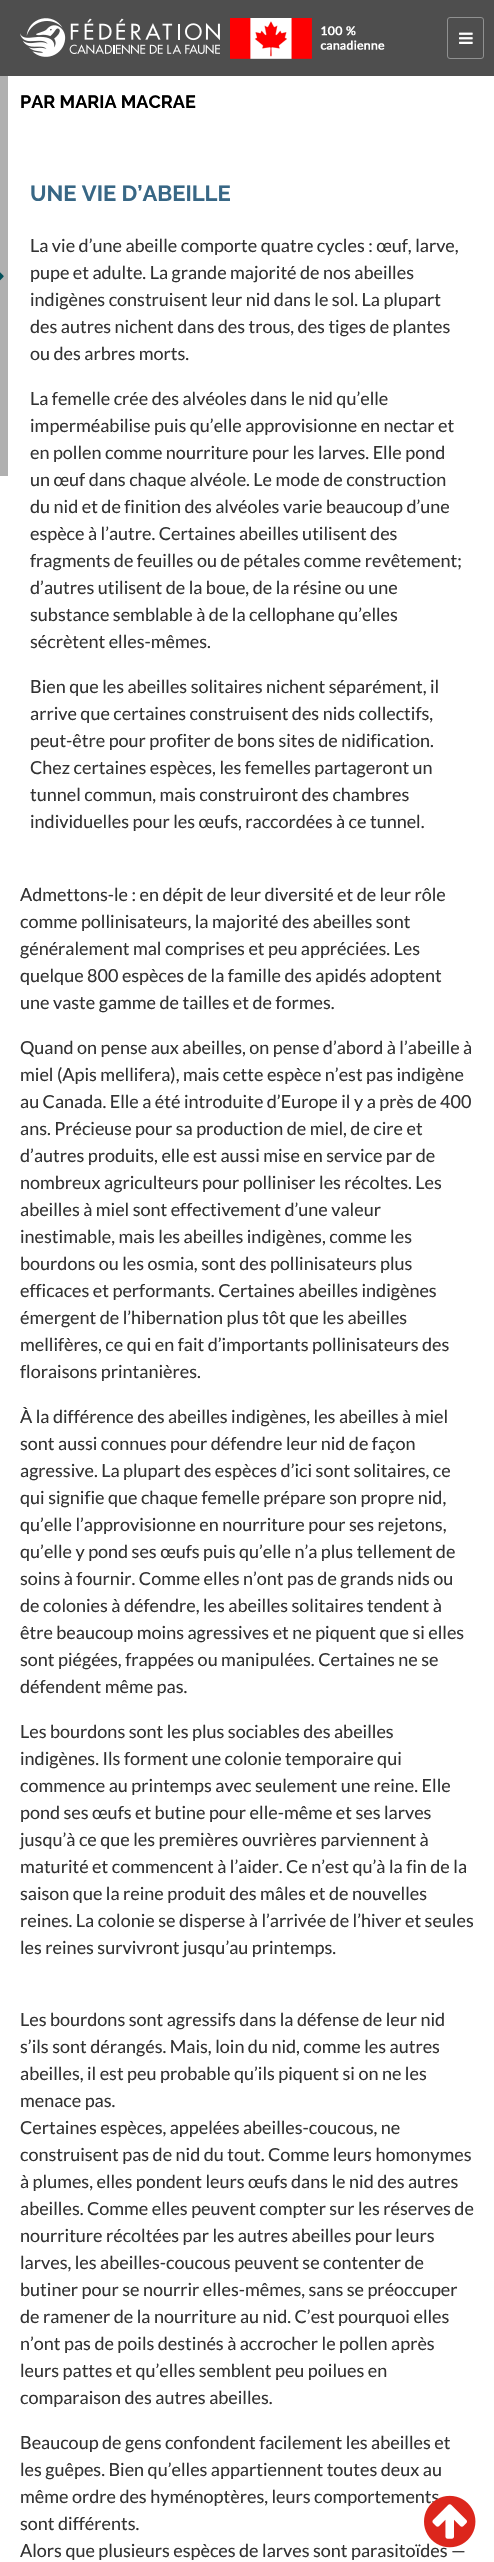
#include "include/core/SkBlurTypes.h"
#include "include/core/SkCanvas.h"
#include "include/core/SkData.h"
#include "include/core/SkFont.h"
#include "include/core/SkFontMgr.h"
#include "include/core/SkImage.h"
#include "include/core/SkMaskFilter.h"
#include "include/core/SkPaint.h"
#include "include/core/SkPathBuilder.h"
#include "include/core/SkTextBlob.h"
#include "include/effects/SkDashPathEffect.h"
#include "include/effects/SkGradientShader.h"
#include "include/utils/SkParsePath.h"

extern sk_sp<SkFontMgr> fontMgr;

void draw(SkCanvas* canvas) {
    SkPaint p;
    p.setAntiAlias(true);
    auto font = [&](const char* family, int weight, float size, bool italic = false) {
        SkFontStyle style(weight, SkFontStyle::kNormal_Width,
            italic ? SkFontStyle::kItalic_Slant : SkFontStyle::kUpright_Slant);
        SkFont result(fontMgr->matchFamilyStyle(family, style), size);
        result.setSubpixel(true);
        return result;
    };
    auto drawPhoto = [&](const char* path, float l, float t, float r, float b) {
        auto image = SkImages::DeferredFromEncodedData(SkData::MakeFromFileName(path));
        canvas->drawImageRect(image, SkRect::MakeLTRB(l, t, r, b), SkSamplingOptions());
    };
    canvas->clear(0xFFFFFFFF);
    p.setColor(0xFF4E4E4E);
    canvas->drawRect(SkRect::MakeLTRB(0, 0, 494, 76), p);
    drawPhoto("media/1.png", 20, 18, 220, 57);
    drawPhoto("media/2.png", 230, 18, 385, 59);
    p.setStyle(SkPaint::kStroke_Style);
    p.setStrokeWidth(1);
    p.setColor(0xFF909191);
    canvas->drawRoundRect(SkRect::MakeLTRB(447.5f, 17.5f, 483.5f, 58.5f), 2.5f, 2.5f, p);
    drawPhoto("media/3.png", 459, 32, 473, 44);
    p.setStyle(SkPaint::kFill_Style);
    p.setColor(0xFFB0B0B0);
    canvas->drawRect(SkRect::MakeLTRB(0, 76, 8, 476), p);
    drawPhoto("media/4.png", 0, 272, 4, 281);
    auto font1 = font("Raleway", 700, 18);
    p.setColor(0xFF000000);
    canvas->drawString("PAR MARIA MACRAE", 20, 108, font1, p);
    auto font2 = font("Raleway", 700, 22);
    p.setColor(0xFF386785);
    canvas->drawString("UNE VIE D’ABEILLE", 30, 201, font2, p);
    auto font3 = font("Lato", 400, 18);
    p.setColor(0xFF333333);
    {
        const struct { const char* s; float x, y; } items[] = {
            {"La vie d’une abeille comporte quatre cycles : œuf, larve,", 30, 252},
            {"pupe et adulte. La grande majorité de nos abeilles", 30, 279},
            {"indigènes construisent leur nid dans le sol. La plupart", 30, 306},
            {"des autres nichent dans des trous, des tiges de plantes", 30, 333},
            {"ou des arbres morts.", 30, 360},
            {"La femelle crée des alvéoles dans le nid qu’elle", 30, 405},
            {"imperméabilise puis qu’elle approvisionne en nectar et", 30, 432},
            {"en pollen comme nourriture pour les larves. Elle pond", 30, 459},
            {"un œuf dans chaque alvéole. Le mode de construction", 30, 486},
            {"du nid et de finition des alvéoles varie beaucoup d’une", 30, 513},
            {"espèce à l’autre. Certaines abeilles utilisent des", 30, 540},
            {"fragments de feuilles ou de pétales comme revêtement;", 30, 567},
            {"d’autres utilisent de la boue, de la résine ou une", 30, 594},
            {"substance semblable à de la cellophane qu’elles", 30, 621},
            {"sécrètent elles-mêmes.", 30, 648},
            {"Bien que les abeilles solitaires nichent séparément, il", 30, 693},
            {"arrive que certaines construisent des nids collectifs,", 30, 720},
            {"peut-être pour profiter de bons sites de nidification.", 30, 747},
            {"Chez certaines espèces, les femelles partageront un", 30, 774},
            {"tunnel commun, mais construiront des chambres", 30, 801},
            {"individuelles pour les œufs, raccordées à ce tunnel.", 30, 828},
            {"Admettons-le : en dépit de leur diversité et de leur rôle", 20, 901},
            {"comme pollinisateurs, la majorité des abeilles sont", 20, 928},
            {"généralement mal comprises et peu appréciées. Les", 20, 955},
            {"quelque 800 espèces de la famille des apidés adoptent", 20, 982},
            {"une vaste gamme de tailles et de formes.", 20, 1009},
            {"Quand on pense aux abeilles, on pense d’abord à l’abeille à", 20, 1054},
            {"miel (Apis mellifera), mais cette espèce n’est pas indigène", 20, 1081},
            {"au Canada. Elle a été introduite d’Europe il y a près de 400", 20, 1108},
            {"ans. Précieuse pour sa production de miel, de cire et", 20, 1135},
            {"d’autres produits, elle est aussi mise en service par de", 20, 1162},
            {"nombreux agriculteurs pour polliniser les récoltes. Les", 20, 1189},
            {"abeilles à miel sont effectivement d’une valeur", 20, 1216},
            {"inestimable, mais les abeilles indigènes, comme les", 20, 1243},
            {"bourdons ou les osmia, sont des pollinisateurs plus", 20, 1270},
            {"efficaces et performants. Certaines abeilles indigènes", 20, 1297},
            {"émergent de l’hibernation plus tôt que les abeilles", 20, 1324},
            {"mellifères, ce qui en fait d’importants pollinisateurs des", 20, 1351},
            {"floraisons printanières.", 20, 1378},
            {"À la différence des abeilles indigènes, les abeilles à miel", 20, 1423},
            {"sont aussi connues pour défendre leur nid de façon", 20, 1450},
            {"agressive. La plupart des espèces d’ici sont solitaires, ce", 20, 1477},
            {"qui signifie que chaque femelle prépare son propre nid,", 20, 1504},
            {"qu’elle l’approvisionne en nourriture pour ses rejetons,", 20, 1531},
            {"qu’elle y pond ses œufs puis qu’elle n’a plus tellement de", 20, 1558},
            {"soins à fournir. Comme elles n’ont pas de grands nids ou", 20, 1585},
            {"de colonies à défendre, les abeilles solitaires tendent à", 20, 1612},
            {"être beaucoup moins agressives et ne piquent que si elles", 20, 1639},
            {"sont piégées, frappées ou manipulées. Certaines ne se", 20, 1666},
            {"défendent même pas.", 20, 1693},
            {"Les bourdons sont les plus sociables des abeilles", 20, 1738},
            {"indigènes. Ils forment une colonie temporaire qui", 20, 1765},
            {"commence au printemps avec seulement une reine. Elle", 20, 1792},
            {"pond ses œufs et butine pour elle-même et ses larves", 20, 1819},
            {"jusqu’à ce que les premières ouvrières parviennent à", 20, 1846},
            {"maturité et commencent à l’aider. Ce n’est qu’à la fin de la", 20, 1873},
            {"saison que la reine produit des mâles et de nouvelles", 20, 1900},
            {"reines. La colonie se disperse à l’arrivée de l’hiver et seules", 20, 1927},
            {"les reines survivront jusqu’au printemps.", 20, 1954},
            {"Les bourdons sont agressifs dans la défense de leur nid", 20, 2026},
            {"s’ils sont dérangés. Mais, loin du nid, comme les autres", 20, 2053},
            {"abeilles, il est peu probable qu’ils piquent si on ne les", 20, 2080},
            {"menace pas.", 20, 2107},
            {"Certaines espèces, appelées abeilles-coucous, ne", 20, 2134},
            {"construisent pas de nid du tout. Comme leurs homonymes", 20, 2161},
            {"à plumes, elles pondent leurs œufs dans le nid des autres", 20, 2188},
            {"abeilles. Comme elles peuvent compter sur les réserves de", 20, 2215},
            {"nourriture récoltées par les autres abeilles pour leurs", 20, 2242},
            {"larves, les abeilles-coucous peuvent se contenter de", 20, 2269},
            {"butiner pour se nourrir elles-mêmes, sans se préoccuper", 20, 2296},
            {"de ramener de la nourriture au nid. C’est pourquoi elles", 20, 2323},
            {"n’ont pas de poils destinés à accrocher le pollen après", 20, 2350},
            {"leurs pattes et qu’elles semblent peu poilues en", 20, 2377},
            {"comparaison des autres abeilles.", 20, 2404},
            {"Beaucoup de gens confondent facilement les abeilles et", 20, 2449},
            {"les guêpes. Bien qu’elles appartiennent toutes deux au", 20, 2476},
            {"même ordre des hyménoptères, leurs comportements", 20, 2503},
            {"sont différents.", 20, 2530},
            {"Alors que plusieurs espèces de larves sont parasitoïdes —", 20, 2557},
        };
        for (auto [s, x, y] : items) {
            canvas->drawString(s, x, y, font3, p);
        }
    }
    drawPhoto("media/5.png", 424, 2495, 476, 2548);
}
